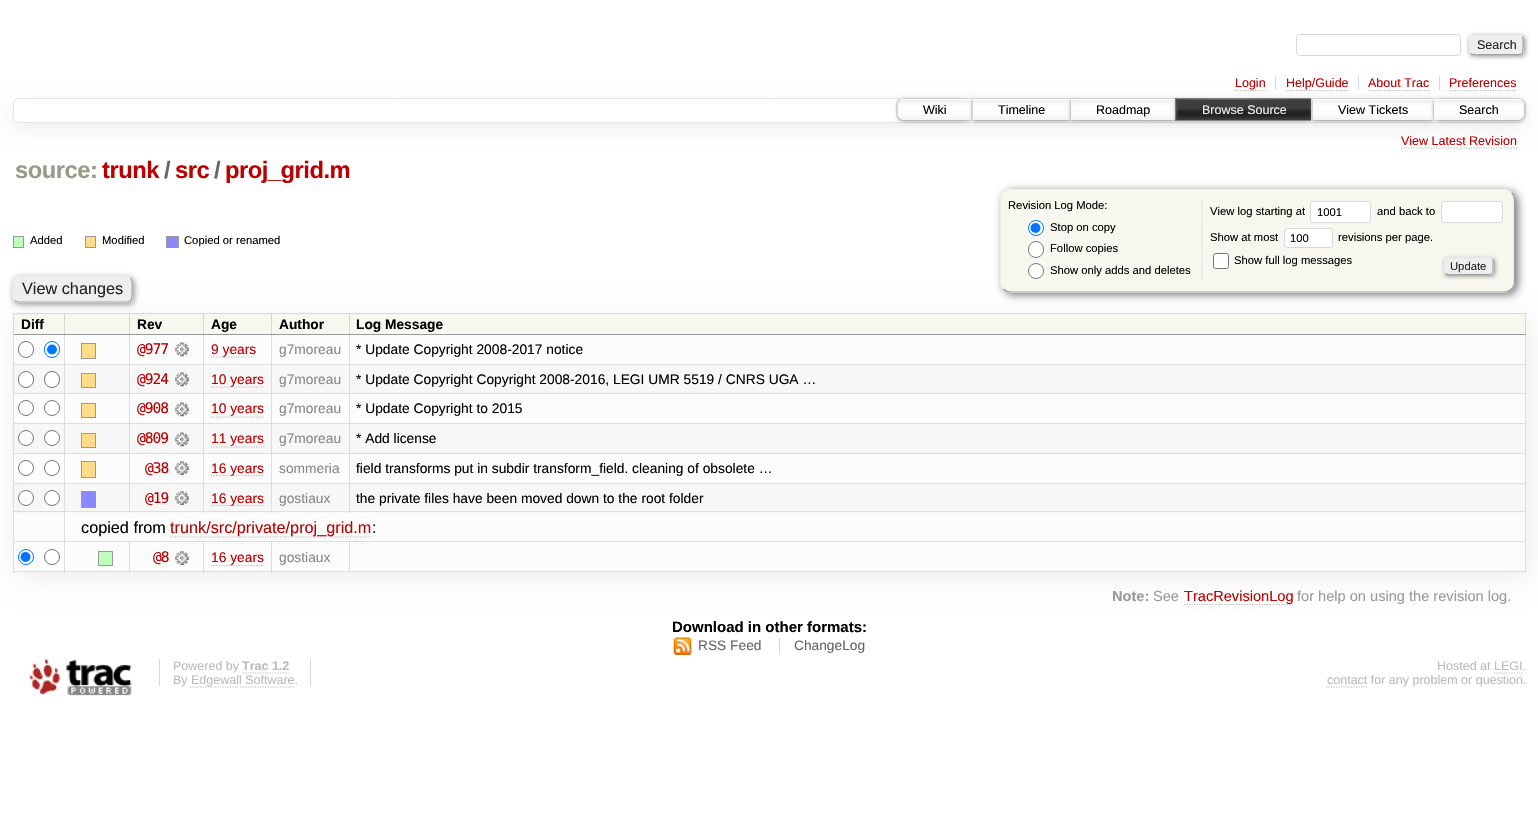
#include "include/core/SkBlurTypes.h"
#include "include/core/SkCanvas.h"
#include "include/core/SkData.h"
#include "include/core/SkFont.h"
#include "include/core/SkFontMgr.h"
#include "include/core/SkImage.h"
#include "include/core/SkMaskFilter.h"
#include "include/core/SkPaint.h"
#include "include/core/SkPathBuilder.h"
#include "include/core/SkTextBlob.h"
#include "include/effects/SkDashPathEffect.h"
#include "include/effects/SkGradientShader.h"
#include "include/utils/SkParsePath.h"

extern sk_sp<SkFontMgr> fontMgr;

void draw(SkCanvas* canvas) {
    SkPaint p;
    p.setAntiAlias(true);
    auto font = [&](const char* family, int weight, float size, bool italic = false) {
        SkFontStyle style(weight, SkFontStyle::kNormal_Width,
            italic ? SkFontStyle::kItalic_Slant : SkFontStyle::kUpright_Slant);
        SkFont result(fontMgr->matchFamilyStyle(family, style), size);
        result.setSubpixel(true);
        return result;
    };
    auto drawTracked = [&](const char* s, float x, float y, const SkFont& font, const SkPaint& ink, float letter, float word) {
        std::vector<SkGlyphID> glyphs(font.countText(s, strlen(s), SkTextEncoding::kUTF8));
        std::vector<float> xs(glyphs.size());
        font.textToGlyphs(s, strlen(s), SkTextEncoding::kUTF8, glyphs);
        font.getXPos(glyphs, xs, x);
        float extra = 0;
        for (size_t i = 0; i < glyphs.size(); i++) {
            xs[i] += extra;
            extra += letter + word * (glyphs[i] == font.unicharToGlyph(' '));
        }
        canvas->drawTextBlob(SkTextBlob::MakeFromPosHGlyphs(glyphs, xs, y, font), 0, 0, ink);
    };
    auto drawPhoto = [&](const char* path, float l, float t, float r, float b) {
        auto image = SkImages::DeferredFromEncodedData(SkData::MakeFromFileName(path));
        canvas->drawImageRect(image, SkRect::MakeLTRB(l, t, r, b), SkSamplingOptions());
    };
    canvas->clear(0xFFFFFFFF);
    p.setStyle(SkPaint::kStroke_Style);
    p.setStrokeWidth(1);
    p.setColor(0xFFD7D7D7);
    canvas->drawRoundRect(SkRect::MakeLTRB(1296.5f, 34.5f, 1460.5f, 55.5f), 3.5f, 3.5f, p);
    p.setStyle(SkPaint::kFill_Style);
    p.setColor(0xFF888888);
    p.setMaskFilter(SkMaskFilter::MakeBlur(kNormal_SkBlurStyle, 2.5f));
    canvas->drawRoundRect(SkRect::MakeLTRB(1470, 36, 1525, 56), 4, 4, p);
    p.setMaskFilter(nullptr);
    p.setColor(0xFFEEEEEE);
    canvas->drawRoundRect(SkRect::MakeLTRB(1469, 35, 1524, 55), 4, 4, p);
    p.setStyle(SkPaint::kStroke_Style);
    p.setStrokeWidth(1.2f);
    p.setColor(0xFF9F9F9F);
    canvas->drawPath(SkPathBuilder().moveTo(1522, 36.5f).cubicTo(1524, 38.5f, 1523, 42.5f, 1523, 45).cubicTo(1523, 56, 1523.5f, 54.5f, 1512, 54.5f).lineTo(1480.5f, 54.5f).cubicTo(1480, 54.5f, 1472.5f, 55.5f, 1470.5f, 53.5f).detach(), p);
    p.setColor(0xFFEEEEEE);
    canvas->drawPath(SkPathBuilder().moveTo(1470.5f, 53.5f).cubicTo(1468.5f, 51.5f, 1469.5f, 47.5f, 1469.5f, 45).cubicTo(1469.5f, 34, 1469, 35.5f, 1480.5f, 35.5f).lineTo(1512, 35.5f).cubicTo(1512.5f, 35.5f, 1520, 34.5f, 1522, 36.5f).detach(), p);
    auto font1 = font("Liberation Sans", 400, 12.5f);
    p.setStyle(SkPaint::kFill_Style);
    p.setColor(0xFF222222);
    canvas->drawString("Search", 1477, 49, font1, p);
    canvas->save();
    canvas->clipPath(SkPathBuilder(SkPathFillType::kEvenOdd).moveTo(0, 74).lineTo(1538, 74).lineTo(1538, 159).lineTo(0, 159).close().moveTo(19, 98).lineTo(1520, 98).cubicTo(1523.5f, 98, 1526, 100.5f, 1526, 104).lineTo(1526, 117).cubicTo(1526, 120.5f, 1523.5f, 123, 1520, 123).lineTo(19, 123).cubicTo(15.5f, 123, 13, 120.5f, 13, 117).lineTo(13, 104).cubicTo(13, 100.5f, 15.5f, 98, 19, 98).close().detach(), true);
    p.setColor(0xFFEEEEEE);
    p.setMaskFilter(SkMaskFilter::MakeBlur(kNormal_SkBlurStyle, 9.5f));
    canvas->drawRoundRect(SkRect::MakeLTRB(13, 104, 1526, 129), 6, 6, p);
    p.setMaskFilter(nullptr);
    canvas->restore();
    p.setColor(0xFFD7D7D7);
    canvas->drawRect(SkRect::MakeLTRB(1275, 76, 1276, 90), p);
    p.setStyle(SkPaint::kStroke_Style);
    p.setColor(0xFFBBBBBB);
    p.setPathEffect(SkDashPathEffect::Make({{1.25f, 1.25f}}, 0));
    canvas->drawPath(SkPathBuilder().moveTo(1235, 90.5f).lineTo(1266, 90.5f).detach(), p);
    p.setPathEffect(nullptr);
    p.setStyle(SkPaint::kFill_Style);
    p.setColor(0xFFBB0000);
    canvas->drawString("Login", 1235, 87, font1, p);
    p.setColor(0xFFD7D7D7);
    canvas->drawRect(SkRect::MakeLTRB(1358, 76, 1359, 90), p);
    p.setStyle(SkPaint::kStroke_Style);
    p.setColor(0xFFBBBBBB);
    p.setPathEffect(SkDashPathEffect::Make({{1.25f, 1.25f}}, 0));
    canvas->drawPath(SkPathBuilder().moveTo(1286, 90.5f).lineTo(1349, 90.5f).detach(), p);
    p.setPathEffect(nullptr);
    p.setStyle(SkPaint::kFill_Style);
    p.setColor(0xFFBB0000);
    canvas->drawString("Help/Guide", 1286, 87, font1, p);
    p.setColor(0xFFD7D7D7);
    canvas->drawRect(SkRect::MakeLTRB(1439, 76, 1440, 90), p);
    p.setColor(0xFFBB0000);
    canvas->drawString("About Trac", 1368, 87, font1, p);
    p.setStyle(SkPaint::kStroke_Style);
    p.setColor(0xFFBBBBBB);
    p.setPathEffect(SkDashPathEffect::Make({{1.25f, 1.25f}}, 0));
    canvas->drawPath(SkPathBuilder().moveTo(1369, 90.5f).lineTo(1430, 90.5f).detach(), p);
    p.setPathEffect(nullptr);
    p.setStyle(SkPaint::kFill_Style);
    p.setColor(0xFFBB0000);
    canvas->drawString("Preferences", 1449, 87, font1, p);
    p.setStyle(SkPaint::kStroke_Style);
    p.setColor(0xFFBBBBBB);
    p.setPathEffect(SkDashPathEffect::Make({{1.25f, 1.25f}}, 0));
    canvas->drawPath(SkPathBuilder().moveTo(1450, 90.5f).lineTo(1517.5f, 90.5f).detach(), p);
    p.setPathEffect(nullptr);
    p.setStrokeWidth(1);
    p.setColor(0xFFE4E4E4);
    canvas->drawRoundRect(SkRect::MakeLTRB(13.5f, 98.5f, 1525.5f, 122.5f), 5.5f, 5.5f, p);
    p.setStyle(SkPaint::kFill_Style);
    p.setColor(0xFFFFFFFF);
    canvas->drawPath(SkPathBuilder().moveTo(902, 98).lineTo(973, 98).lineTo(973, 121).lineTo(902, 121).cubicTo(898.5f, 121, 896, 118.5f, 896, 115).lineTo(896, 104).cubicTo(896, 100.5f, 898.5f, 98, 902, 98).close().detach(), p);
    drawPhoto("media/1.png", 897, 100, 971, 121);
    p.setStyle(SkPaint::kStroke_Style);
    p.setColor(0xFFE4E4E4);
    canvas->drawPath(SkPathBuilder().moveTo(902, 98.5f).lineTo(972.5f, 98.5f).lineTo(972.5f, 120.5f).lineTo(902, 120.5f).cubicTo(899, 120.5f, 896.5f, 118, 896.5f, 115).lineTo(896.5f, 104).cubicTo(896.5f, 101, 899, 98.5f, 902, 98.5f).close().detach(), p);
    canvas->save();
    canvas->clipPath(SkPathBuilder(SkPathFillType::kEvenOdd).moveTo(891, 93).lineTo(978, 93).lineTo(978, 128).lineTo(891, 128).close().moveTo(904, 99).lineTo(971, 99).lineTo(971, 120).lineTo(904, 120).cubicTo(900.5f, 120, 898, 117.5f, 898, 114).lineTo(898, 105).cubicTo(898, 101.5f, 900.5f, 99, 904, 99).close().detach(), true);
    p.setStyle(SkPaint::kFill_Style);
    p.setColor(0xFF999999);
    p.setMaskFilter(SkMaskFilter::MakeBlur(kNormal_SkBlurStyle, 2));
    canvas->drawRoundRect(SkRect::MakeLTRB(898, 100, 971, 121), 6, 6, p);
    p.setMaskFilter(nullptr);
    canvas->restore();
    p.setColor(0xFF000000);
    canvas->drawString("Wiki", 923, 114, font1, p);
    p.setColor(0xFFFFFFFF);
    canvas->drawRect(SkRect::MakeLTRB(972, 99, 975, 120), p);
    drawPhoto("media/2.png", 972, 100, 1070, 120);
    p.setStyle(SkPaint::kStroke_Style);
    p.setColor(0xFFE4E4E4);
    canvas->drawRect(SkRect::MakeLTRB(971.5f, 98.5f, 1070.5f, 120.5f), p);
    canvas->save();
    canvas->clipPath(SkPathBuilder(SkPathFillType::kEvenOdd).moveTo(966, 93).lineTo(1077, 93).lineTo(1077, 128).lineTo(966, 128).close().moveTo(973, 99).lineTo(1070, 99).lineTo(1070, 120).lineTo(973, 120).close().detach(), true);
    p.setStyle(SkPaint::kFill_Style);
    p.setColor(0xFF999999);
    p.setMaskFilter(SkMaskFilter::MakeBlur(kNormal_SkBlurStyle, 2));
    canvas->drawRect(SkRect::MakeLTRB(973, 100, 1070, 121), p);
    p.setMaskFilter(nullptr);
    canvas->restore();
    p.setColor(0xFF000000);
    canvas->drawString("Timeline", 998, 114, font1, p);
    p.setColor(0xFFFFFFFF);
    canvas->drawRect(SkRect::MakeLTRB(1071, 99, 1074, 120), p);
    drawPhoto("media/3.png", 1071, 100, 1175, 120);
    p.setStyle(SkPaint::kStroke_Style);
    p.setColor(0xFFE4E4E4);
    canvas->drawRect(SkRect::MakeLTRB(1070.5f, 98.5f, 1175.5f, 120.5f), p);
    canvas->save();
    canvas->clipPath(SkPathBuilder(SkPathFillType::kEvenOdd).moveTo(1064, 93).lineTo(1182, 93).lineTo(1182, 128).lineTo(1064, 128).close().moveTo(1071, 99).lineTo(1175, 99).lineTo(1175, 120).lineTo(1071, 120).close().detach(), true);
    p.setStyle(SkPaint::kFill_Style);
    p.setColor(0xFF999999);
    p.setMaskFilter(SkMaskFilter::MakeBlur(kNormal_SkBlurStyle, 2));
    canvas->drawRect(SkRect::MakeLTRB(1071, 100, 1175, 121), p);
    p.setMaskFilter(nullptr);
    canvas->restore();
    p.setColor(0xFF000000);
    canvas->drawString("Roadmap", 1096, 114, font1, p);
    p.setStyle(SkPaint::kStroke_Style);
    p.setColor(0xFF666666);
    canvas->drawRect(SkRect::MakeLTRB(1175.5f, 98.5f, 1312.5f, 120.5f), p);
    p.setStyle(SkPaint::kFill_Style);
    p.setColor(0xFF999999);
    p.setMaskFilter(SkMaskFilter::MakeBlur(kNormal_SkBlurStyle, 2));
    canvas->drawRect(SkRect::MakeLTRB(1176, 100, 1311, 121), p);
    p.setMaskFilter(nullptr);
    p.setColor(0xFF000000);
    canvas->drawRect(SkRect::MakeLTRB(1176, 99, 1311, 120), p);
    drawPhoto("media/4.png", 1176, 98, 1311, 120);
    p.setColor(0xFFEEEEEE);
    canvas->drawString("Browse Source", 1202, 114, font1, p);
    p.setColor(0xFFFFFFFF);
    canvas->drawRect(SkRect::MakeLTRB(1312, 99, 1315, 120), p);
    drawPhoto("media/5.png", 1312, 100, 1433, 120);
    p.setStyle(SkPaint::kStroke_Style);
    p.setColor(0xFFE4E4E4);
    canvas->drawRect(SkRect::MakeLTRB(1311.5f, 98.5f, 1433.5f, 120.5f), p);
    canvas->save();
    canvas->clipPath(SkPathBuilder(SkPathFillType::kEvenOdd).moveTo(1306, 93).lineTo(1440, 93).lineTo(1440, 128).lineTo(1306, 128).close().moveTo(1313, 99).lineTo(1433, 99).lineTo(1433, 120).lineTo(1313, 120).close().detach(), true);
    p.setStyle(SkPaint::kFill_Style);
    p.setColor(0xFF999999);
    p.setMaskFilter(SkMaskFilter::MakeBlur(kNormal_SkBlurStyle, 2));
    canvas->drawRect(SkRect::MakeLTRB(1313, 100, 1433, 121), p);
    p.setMaskFilter(nullptr);
    canvas->restore();
    p.setColor(0xFF000000);
    canvas->drawString("View Tickets", 1338, 114, font1, p);
    p.setColor(0xFFFFFFFF);
    canvas->drawPath(SkPathBuilder().moveTo(1433, 98).lineTo(1519, 98).cubicTo(1522.5f, 98, 1525, 100.5f, 1525, 104).lineTo(1525, 115).cubicTo(1525, 118.5f, 1522.5f, 121, 1519, 121).lineTo(1433, 121).close().detach(), p);
    drawPhoto("media/6.png", 1434, 100, 1525, 121);
    p.setStyle(SkPaint::kStroke_Style);
    p.setColor(0xFFE4E4E4);
    canvas->drawPath(SkPathBuilder().moveTo(1433.5f, 98.5f).lineTo(1519, 98.5f).cubicTo(1522, 98.5f, 1524.5f, 101, 1524.5f, 104).lineTo(1524.5f, 115).cubicTo(1524.5f, 118, 1522, 120.5f, 1519, 120.5f).lineTo(1433.5f, 120.5f).close().detach(), p);
    canvas->save();
    canvas->clipPath(SkPathBuilder(SkPathFillType::kEvenOdd).moveTo(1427, 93).lineTo(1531, 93).lineTo(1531, 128).lineTo(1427, 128).close().moveTo(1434, 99).lineTo(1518, 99).cubicTo(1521.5f, 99, 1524, 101.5f, 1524, 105).lineTo(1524, 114).cubicTo(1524, 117.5f, 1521.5f, 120, 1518, 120).lineTo(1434, 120).close().detach(), true);
    p.setStyle(SkPaint::kFill_Style);
    p.setColor(0xFF999999);
    p.setMaskFilter(SkMaskFilter::MakeBlur(kNormal_SkBlurStyle, 2));
    canvas->drawRoundRect(SkRect::MakeLTRB(1434, 100, 1524, 121), 6, 6, p);
    p.setMaskFilter(nullptr);
    canvas->restore();
    p.setColor(0xFF000000);
    canvas->drawString("Search", 1459, 114, font1, p);
    p.setColor(0xFFBB0000);
    canvas->drawString("View Latest Revision", 1401, 145, font1, p);
    p.setStyle(SkPaint::kStroke_Style);
    p.setStrokeWidth(1.2f);
    p.setColor(0xFFBBBBBB);
    p.setPathEffect(SkDashPathEffect::Make({{1.25f, 1.25f}}, 0));
    canvas->drawPath(SkPathBuilder().moveTo(1401, 148).lineTo(1517.5f, 148).detach(), p);
    p.setPathEffect(nullptr);
    auto font2 = font("Liberation Sans", 700, 23.75f);
    p.setStyle(SkPaint::kFill_Style);
    p.setColor(0xFF999988);
    drawTracked("source:", 15, 178, font2, p, -0.5f, 0);
    p.setColor(0xFFBB0000);
    drawTracked("trunk", 102, 178, font2, p, -0.5f, 0);
    p.setColor(0xFF666666);
    drawTracked("/", 164, 178, font2, p, -0.5f, 0);
    p.setColor(0xFFBB0000);
    drawTracked("src", 175, 178, font2, p, -0.5f, 0);
    p.setColor(0xFF666666);
    drawTracked("/", 214, 178, font2, p, -0.5f, 0);
    p.setColor(0xFFBB0000);
    drawTracked("proj_grid.m", 225, 178, font2, p, -0.5f, 0);
    p.setColor(0xFFBBFFBB);
    canvas->drawRect(SkRect::MakeLTRB(13.5f, 236.5f, 23.5f, 247.5f), p);
    p.setStyle(SkPaint::kStroke_Style);
    p.setStrokeWidth(1);
    p.setColor(0xFF999999);
    canvas->drawRect(SkRect::MakeLTRB(13.5f, 236.5f, 23.5f, 247.5f), p);
    auto font3 = font("Liberation Sans", 400, 11.25f);
    p.setStyle(SkPaint::kFill_Style);
    p.setColor(0xFF000000);
    canvas->drawString("Added", 30, 244, font3, p);
    p.setColor(0xFFFFDD88);
    canvas->drawRect(SkRect::MakeLTRB(85.5f, 236.5f, 95.5f, 247.5f), p);
    p.setStyle(SkPaint::kStroke_Style);
    p.setColor(0xFF999999);
    canvas->drawRect(SkRect::MakeLTRB(85.5f, 236.5f, 95.5f, 247.5f), p);
    p.setStyle(SkPaint::kFill_Style);
    p.setColor(0xFF000000);
    canvas->drawString("Modified", 102, 244, font3, p);
    p.setColor(0xFF8888FF);
    canvas->drawRect(SkRect::MakeLTRB(166.5f, 236.5f, 178.5f, 247.5f), p);
    p.setStyle(SkPaint::kStroke_Style);
    p.setColor(0xFF999999);
    canvas->drawRect(SkRect::MakeLTRB(166.5f, 236.5f, 178.5f, 247.5f), p);
    p.setStyle(SkPaint::kFill_Style);
    p.setColor(0xFF000000);
    canvas->drawString("Copied or renamed", 184, 244, font3, p);
    p.setColor(0xFF777777);
    p.setMaskFilter(SkMaskFilter::MakeBlur(kNormal_SkBlurStyle, 4));
    canvas->drawRoundRect(SkRect::MakeLTRB(1003, 191, 1518, 295), 11, 11, p);
    p.setMaskFilter(nullptr);
    p.setColor(0xFFEEEEEE);
    p.setMaskFilter(SkMaskFilter::MakeBlur(kNormal_SkBlurStyle, 12));
    canvas->drawRect(SkRect::MakeLTRB(16, 318, 1530, 578), p);
    p.setMaskFilter(nullptr);
    p.setColor(0xFFF7F7F0);
    canvas->drawRoundRect(SkRect::MakeLTRB(1000, 189, 1515, 293), 11, 11, p);
    p.setStyle(SkPaint::kStroke_Style);
    p.setStrokeWidth(1.2f);
    p.setColor(0xFF9F9F9F);
    canvas->drawPath(SkPathBuilder().moveTo(1511.5f, 192.5f).cubicTo(1513.5f, 194.5f, 1514.5f, 197, 1514.5f, 200).lineTo(1514.5f, 281).cubicTo(1514.5f, 284, 1513.5f, 287, 1511.5f, 289).cubicTo(1509.5f, 291, 1506.5f, 292, 1504, 292).lineTo(1011, 292).cubicTo(1008.5f, 292, 1005.5f, 291, 1003.5f, 289).detach(), p);
    p.setColor(0xFFEEEEEE);
    canvas->drawPath(SkPathBuilder().moveTo(1003.5f, 289).cubicTo(1001.5f, 287, 1000.5f, 284, 1000.5f, 281).lineTo(1000.5f, 200).cubicTo(1000.5f, 197, 1001.5f, 194.5f, 1003.5f, 192.5f).cubicTo(1005.5f, 190.5f, 1008.5f, 189.5f, 1011, 189.5f).lineTo(1504, 189.5f).cubicTo(1506.5f, 189.5f, 1509.5f, 190.5f, 1511.5f, 192.5f).detach(), p);
    p.setColor(0xFFD7D7D7);
    p.setPathEffect(SkDashPathEffect::Make({{1.25f, 1.25f}}, 0));
    canvas->drawPath(SkPathBuilder().moveTo(1202, 199).lineTo(1202, 281).detach(), p);
    p.setPathEffect(nullptr);
    p.setStyle(SkPaint::kFill_Style);
    p.setColor(0xFF000000);
    canvas->drawString("Revision Log Mode:", 1008, 209, font3, p);
    p.setColor(0xFFFFFFFF);
    canvas->drawCircle(1036, 228, 7.5f, p);
    p.setStyle(SkPaint::kStroke_Style);
    p.setStrokeWidth(1);
    p.setColor(0xFF0075FF);
    canvas->drawCircle(1036, 228, 7.5f, p);
    p.setStyle(SkPaint::kFill_Style);
    canvas->drawCircle(1035.5f, 228, 5, p);
    p.setColor(0xFF000000);
    canvas->drawString("Stop on copy", 1050, 231, font3, p);
    p.setColor(0xFFFFFFFF);
    canvas->drawRoundRect(SkRect::MakeLTRB(1028.5f, 241.5f, 1043.5f, 257.5f), 7.5f, 7.5f, p);
    p.setStyle(SkPaint::kStroke_Style);
    p.setColor(0xFF767676);
    canvas->drawRoundRect(SkRect::MakeLTRB(1028.5f, 241.5f, 1043.5f, 257.5f), 7.5f, 7.5f, p);
    p.setStyle(SkPaint::kFill_Style);
    p.setColor(0xFF000000);
    canvas->drawString("Follow copies", 1050, 252, font3, p);
    p.setColor(0xFFFFFFFF);
    canvas->drawCircle(1036, 271, 7.5f, p);
    p.setStyle(SkPaint::kStroke_Style);
    p.setColor(0xFF767676);
    canvas->drawCircle(1036, 271, 7.5f, p);
    p.setStyle(SkPaint::kFill_Style);
    p.setColor(0xFF000000);
    canvas->drawString("Show only adds and deletes", 1050, 274, font3, p);
    canvas->drawString("View log starting at", 1210, 215, font3, p);
    p.setColor(0xFFFFFFFF);
    canvas->drawRoundRect(SkRect::MakeLTRB(1310.5f, 201.5f, 1370.5f, 222.5f), 2.5f, 2.5f, p);
    p.setStyle(SkPaint::kStroke_Style);
    p.setColor(0xFFD7D7D7);
    canvas->drawRoundRect(SkRect::MakeLTRB(1310.5f, 201.5f, 1370.5f, 222.5f), 2.5f, 2.5f, p);
    p.setStyle(SkPaint::kFill_Style);
    p.setColor(0xFF000000);
    canvas->drawString("1001", 1317, 216, font3, p);
    canvas->drawString("and back to", 1377, 215, font3, p);
    p.setColor(0xFFFFFFFF);
    canvas->drawRoundRect(SkRect::MakeLTRB(1441.5f, 201.5f, 1502.5f, 222.5f), 2.5f, 2.5f, p);
    p.setStyle(SkPaint::kStroke_Style);
    p.setColor(0xFFD7D7D7);
    canvas->drawRoundRect(SkRect::MakeLTRB(1441.5f, 201.5f, 1502.5f, 222.5f), 2.5f, 2.5f, p);
    p.setStyle(SkPaint::kFill_Style);
    p.setColor(0xFF000000);
    canvas->drawString("Show at most", 1210, 241, font3, p);
    p.setColor(0xFFFFFFFF);
    canvas->drawRoundRect(SkRect::MakeLTRB(1284.5f, 228.5f, 1332.5f, 247.5f), 2.5f, 2.5f, p);
    p.setStyle(SkPaint::kStroke_Style);
    p.setColor(0xFFD7D7D7);
    canvas->drawRoundRect(SkRect::MakeLTRB(1284.5f, 228.5f, 1332.5f, 247.5f), 2.5f, 2.5f, p);
    p.setStyle(SkPaint::kFill_Style);
    p.setColor(0xFF000000);
    canvas->drawString("100", 1290, 242, font3, p);
    canvas->drawString("revisions per page.", 1338, 241, font3, p);
    p.setColor(0xFFFFFFFF);
    canvas->drawRoundRect(SkRect::MakeLTRB(1213.5f, 253.5f, 1228.5f, 268.5f), 2, 2, p);
    p.setStyle(SkPaint::kStroke_Style);
    p.setColor(0xFF767676);
    canvas->drawRoundRect(SkRect::MakeLTRB(1213.5f, 253.5f, 1228.5f, 268.5f), 2, 2, p);
    p.setStyle(SkPaint::kFill_Style);
    p.setColor(0xFF000000);
    canvas->drawString("Show full log messages", 1234, 264, font3, p);
    p.setColor(0xFF888888);
    p.setMaskFilter(SkMaskFilter::MakeBlur(kNormal_SkBlurStyle, 2));
    canvas->drawRoundRect(SkRect::MakeLTRB(1445, 259, 1495, 276), 3, 3, p);
    p.setMaskFilter(nullptr);
    p.setColor(0xFFEEEEEE);
    canvas->drawRoundRect(SkRect::MakeLTRB(1444, 258, 1494, 275), 3, 3, p);
    p.setStyle(SkPaint::kStroke_Style);
    p.setStrokeWidth(1.2f);
    p.setColor(0xFF9F9F9F);
    canvas->drawPath(SkPathBuilder().moveTo(1492.5f, 259).cubicTo(1494, 260.5f, 1493, 264, 1493, 266).cubicTo(1493, 275.5f, 1493.5f, 274.5f, 1483, 274.5f).lineTo(1454.5f, 274.5f).cubicTo(1454, 274.5f, 1447, 275.5f, 1445, 273.5f).detach(), p);
    p.setColor(0xFFEEEEEE);
    canvas->drawPath(SkPathBuilder().moveTo(1445, 273.5f).cubicTo(1443.5f, 272, 1444.5f, 268.5f, 1444.5f, 266).cubicTo(1444.5f, 257, 1444, 258, 1454.5f, 258).lineTo(1483, 258).cubicTo(1483.5f, 258, 1490.5f, 257, 1492.5f, 259).detach(), p);
    p.setStyle(SkPaint::kFill_Style);
    p.setColor(0xFF222222);
    canvas->drawString("Update", 1450, 270, font3, p);
    {
        const struct { float l, t, r, b; SkColor color; } items[] = {
            {349, 313, 1526, 314, 0xFFD7D7D7},
            {14, 314, 1525, 334, 0xFFF7F7F0},
            {13, 364, 1526, 365, 0xFFDDDDDD},
            {13, 393, 1526, 394, 0xFFDDDDDD},
            {13, 423, 1526, 424, 0xFFDDDDDD},
            {13, 453, 1526, 454, 0xFFDDDDDD},
            {13, 483, 1526, 484, 0xFFDDDDDD},
            {20, 484, 1525, 513, 0xFFF7F7F7},
            {13, 511, 1526, 512, 0xFFDDDDDD},
            {14, 513, 1525, 571, 0xFFFCFCFC},
            {13, 541, 1526, 542, 0xFFDDDDDD},
            {1525, 334, 1526, 573, 0xFFDDDDDD},
            {1525, 313, 1526, 335, 0xFFD7D7D7},
            {14, 335, 1525, 364, 0xFFFCFCFC},
            {20, 365, 1525, 393, 0xFFF7F7F7},
            {14, 394, 1525, 423, 0xFFFCFCFC},
            {20, 424, 1525, 453, 0xFFF7F7F7},
            {14, 454, 1525, 483, 0xFFFCFCFC},
            {349, 334, 350, 513, 0xFFDDDDDD},
            {349, 334, 1526, 335, 0xFF999999},
            {349, 313, 350, 335, 0xFFD7D7D7},
            {271, 313, 350, 314, 0xFFD7D7D7},
            {271, 334, 272, 513, 0xFFDDDDDD},
            {271, 334, 350, 335, 0xFF999999},
            {271, 313, 272, 335, 0xFFD7D7D7},
            {203, 313, 273, 314, 0xFFD7D7D7},
            {203, 334, 204, 513, 0xFFDDDDDD},
            {203, 334, 273, 335, 0xFF999999},
            {203, 313, 204, 335, 0xFFD7D7D7},
            {129, 313, 204, 314, 0xFFD7D7D7},
            {129, 334, 130, 513, 0xFFDDDDDD},
            {129, 334, 204, 335, 0xFF999999},
            {129, 313, 130, 335, 0xFFD7D7D7},
            {64, 313, 130, 314, 0xFFD7D7D7},
            {349, 571, 1526, 572, 0xFFDDDDDD},
            {349, 541, 350, 573, 0xFFDDDDDD},
            {271, 571, 350, 572, 0xFFDDDDDD},
            {271, 541, 272, 573, 0xFFDDDDDD},
            {203, 571, 273, 572, 0xFFDDDDDD},
            {203, 541, 204, 573, 0xFFDDDDDD},
            {129, 571, 204, 572, 0xFFDDDDDD},
            {129, 541, 130, 573, 0xFFDDDDDD},
            {64, 571, 130, 572, 0xFFDDDDDD},
            {64, 334, 65, 573, 0xFFDDDDDD},
            {64, 334, 130, 335, 0xFF999999},
            {64, 313, 65, 335, 0xFFD7D7D7},
            {13, 313, 65, 314, 0xFFD7D7D7},
            {13, 571, 65, 572, 0xFFDDDDDD},
            {13, 334, 14, 573, 0xFFDDDDDD},
            {13, 334, 65, 335, 0xFF999999},
            {13, 313, 14, 335, 0xFFD7D7D7},
        };
        for (auto [l, t, r, b, color] : items) {
            p.setColor(color);
            canvas->drawRect(SkRect::MakeLTRB(l, t, r, b), p);
        }
    }
    p.setColor(0xFF888888);
    p.setMaskFilter(SkMaskFilter::MakeBlur(kNormal_SkBlurStyle, 3));
    canvas->drawRoundRect(SkRect::MakeLTRB(14, 278, 134, 304), 5, 5, p);
    p.setMaskFilter(nullptr);
    p.setColor(0xFFEEEEEE);
    canvas->drawRoundRect(SkRect::MakeLTRB(13, 276, 133, 303), 5, 5, p);
    p.setStyle(SkPaint::kStroke_Style);
    p.setColor(0xFF9F9F9F);
    canvas->drawPath(SkPathBuilder().moveTo(130.5f, 278).cubicTo(133, 280.5f, 132, 286.5f, 132, 289.5f).cubicTo(132, 293, 133.5f, 302, 127.5f, 302).lineTo(17.5f, 302).lineTo(14.5f, 300.5f).detach(), p);
    p.setColor(0xFFEEEEEE);
    canvas->drawPath(SkPathBuilder().moveTo(14.5f, 300.5f).cubicTo(12, 298, 13, 292.5f, 13, 289.5f).cubicTo(13, 286, 11.5f, 277, 17.5f, 277).lineTo(127.5f, 277).lineTo(130.5f, 278).detach(), p);
    auto font4 = font("Liberation Sans", 400, 16.25f);
    p.setStyle(SkPaint::kFill_Style);
    p.setColor(0xFF222222);
    canvas->drawString("View changes", 22, 294, font4, p);
    auto font5 = font("Liberation Sans", 700, 13.75f);
    p.setColor(0xFF000000);
    {
        const struct { const char* s; float x, y; } items[] = {
            {"Diff", 21, 329},
            {"Rev", 137, 329},
            {"Age", 211, 329},
            {"Author", 279, 329},
            {"Log Message", 356, 329},
        };
        for (auto [s, x, y] : items) {
            canvas->drawString(s, x, y, font5, p);
        }
    }
    p.setColor(0xFFFFFFFF);
    canvas->drawRoundRect(SkRect::MakeLTRB(18.5f, 341.5f, 33.5f, 357.5f), 7.5f, 7.5f, p);
    p.setStyle(SkPaint::kStroke_Style);
    p.setStrokeWidth(1);
    p.setColor(0xFF767676);
    canvas->drawRoundRect(SkRect::MakeLTRB(18.5f, 341.5f, 33.5f, 357.5f), 7.5f, 7.5f, p);
    p.setStyle(SkPaint::kFill_Style);
    p.setColor(0xFFFFFFFF);
    canvas->drawRoundRect(SkRect::MakeLTRB(44.5f, 341.5f, 59.5f, 357.5f), 7.5f, 7.5f, p);
    p.setStyle(SkPaint::kStroke_Style);
    p.setColor(0xFF0075FF);
    canvas->drawRoundRect(SkRect::MakeLTRB(44.5f, 341.5f, 59.5f, 357.5f), 7.5f, 7.5f, p);
    p.setStyle(SkPaint::kFill_Style);
    canvas->drawCircle(52, 349.5f, 5, p);
    p.setColor(0xFFFFDD88);
    canvas->drawRect(SkRect::MakeLTRB(81.5f, 343.5f, 95.5f, 358.5f), p);
    p.setStyle(SkPaint::kStroke_Style);
    p.setColor(0xFF999999);
    canvas->drawRect(SkRect::MakeLTRB(81.5f, 343.5f, 95.5f, 358.5f), p);
    auto font6 = font("DejaVu Sans Mono", 400, 14.6f);
    p.setStyle(SkPaint::kFill_Style);
    p.setColor(0xFFBB0000);
    drawTracked("@977", 137, 354, font6, p, -1, 0);
    drawPhoto("media/7.png", 175, 342, 189, 357);
    p.setStyle(SkPaint::kStroke_Style);
    p.setStrokeWidth(1.2f);
    p.setColor(0xFFBBBBBB);
    p.setPathEffect(SkDashPathEffect::Make({{1.25f, 1.25f}}, 0));
    canvas->drawPath(SkPathBuilder().moveTo(211, 357).lineTo(256, 357).detach(), p);
    p.setPathEffect(nullptr);
    auto font7 = font("Liberation Sans", 400, 13.8f);
    p.setStyle(SkPaint::kFill_Style);
    p.setColor(0xFFBB0000);
    canvas->drawString("9 years", 211, 354, font7, p);
    p.setColor(0xFF888888);
    canvas->drawString("g7moreau", 279, 354, font7, p);
    p.setColor(0xFF000000);
    canvas->drawString("* Update Copyright 2008-2017 notice", 356, 354, font7, p);
    p.setColor(0xFFFFFFFF);
    canvas->drawRoundRect(SkRect::MakeLTRB(18.5f, 371.5f, 33.5f, 387.5f), 7.5f, 7.5f, p);
    p.setStyle(SkPaint::kStroke_Style);
    p.setStrokeWidth(1);
    p.setColor(0xFF767676);
    canvas->drawRoundRect(SkRect::MakeLTRB(18.5f, 371.5f, 33.5f, 387.5f), 7.5f, 7.5f, p);
    p.setStyle(SkPaint::kFill_Style);
    p.setColor(0xFFFFFFFF);
    canvas->drawRoundRect(SkRect::MakeLTRB(44.5f, 371.5f, 59.5f, 387.5f), 7.5f, 7.5f, p);
    p.setStyle(SkPaint::kStroke_Style);
    p.setColor(0xFF767676);
    canvas->drawRoundRect(SkRect::MakeLTRB(44.5f, 371.5f, 59.5f, 387.5f), 7.5f, 7.5f, p);
    p.setStyle(SkPaint::kFill_Style);
    p.setColor(0xFFFFDD88);
    canvas->drawRect(SkRect::MakeLTRB(81.5f, 373.5f, 95.5f, 387.5f), p);
    p.setStyle(SkPaint::kStroke_Style);
    p.setColor(0xFF999999);
    canvas->drawRect(SkRect::MakeLTRB(81.5f, 373.5f, 95.5f, 387.5f), p);
    p.setStyle(SkPaint::kFill_Style);
    p.setColor(0xFFBB0000);
    drawTracked("@924", 137, 384, font6, p, -1, 0);
    drawPhoto("media/8.png", 175, 372, 189, 387);
    p.setStyle(SkPaint::kStroke_Style);
    p.setStrokeWidth(1.2f);
    p.setColor(0xFFBBBBBB);
    p.setPathEffect(SkDashPathEffect::Make({{1.25f, 1.25f}}, 0));
    canvas->drawPath(SkPathBuilder().moveTo(211, 387).lineTo(264, 387).detach(), p);
    p.setPathEffect(nullptr);
    p.setStyle(SkPaint::kFill_Style);
    p.setColor(0xFFBB0000);
    canvas->drawString("10 years", 211, 384, font7, p);
    p.setColor(0xFF888888);
    canvas->drawString("g7moreau", 279, 384, font7, p);
    p.setColor(0xFF000000);
    canvas->drawString("* Update Copyright Copyright 2008-2016, LEGI UMR 5519 / CNRS UGA …", 356, 384, font7, p);
    p.setColor(0xFFFFFFFF);
    canvas->drawCircle(26, 408, 7.5f, p);
    p.setStyle(SkPaint::kStroke_Style);
    p.setStrokeWidth(1);
    p.setColor(0xFF767676);
    canvas->drawCircle(26, 408, 7.5f, p);
    p.setStyle(SkPaint::kFill_Style);
    p.setColor(0xFFFFFFFF);
    canvas->drawCircle(52, 408, 7.5f, p);
    p.setStyle(SkPaint::kStroke_Style);
    p.setColor(0xFF767676);
    canvas->drawCircle(52, 408, 7.5f, p);
    p.setStyle(SkPaint::kFill_Style);
    p.setColor(0xFFFFDD88);
    canvas->drawRect(SkRect::MakeLTRB(81.5f, 403.5f, 95.5f, 417.5f), p);
    p.setStyle(SkPaint::kStroke_Style);
    p.setColor(0xFF999999);
    canvas->drawRect(SkRect::MakeLTRB(81.5f, 403.5f, 95.5f, 417.5f), p);
    p.setStyle(SkPaint::kFill_Style);
    p.setColor(0xFFBB0000);
    drawTracked("@908", 137, 413, font6, p, -1, 0);
    drawPhoto("media/7.png", 175, 402, 189, 417);
    canvas->drawString("10 years", 211, 413, font7, p);
    p.setStyle(SkPaint::kStroke_Style);
    p.setStrokeWidth(1.2f);
    p.setColor(0xFFBBBBBB);
    p.setPathEffect(SkDashPathEffect::Make({{1.25f, 1.25f}}, 0));
    canvas->drawPath(SkPathBuilder().moveTo(211, 417).lineTo(264, 417).detach(), p);
    p.setPathEffect(nullptr);
    p.setStyle(SkPaint::kFill_Style);
    p.setColor(0xFF888888);
    canvas->drawString("g7moreau", 279, 413, font7, p);
    p.setColor(0xFF000000);
    canvas->drawString("* Update Copyright to 2015", 356, 413, font7, p);
    p.setColor(0xFFFFFFFF);
    canvas->drawCircle(26, 438, 7.5f, p);
    p.setStyle(SkPaint::kStroke_Style);
    p.setStrokeWidth(1);
    p.setColor(0xFF767676);
    canvas->drawCircle(26, 438, 7.5f, p);
    p.setStyle(SkPaint::kFill_Style);
    p.setColor(0xFFFFFFFF);
    canvas->drawCircle(52, 438, 7.5f, p);
    p.setStyle(SkPaint::kStroke_Style);
    p.setColor(0xFF767676);
    canvas->drawCircle(52, 438, 7.5f, p);
    p.setStyle(SkPaint::kFill_Style);
    p.setColor(0xFFFFDD88);
    canvas->drawRect(SkRect::MakeLTRB(81.5f, 433.5f, 95.5f, 447.5f), p);
    p.setStyle(SkPaint::kStroke_Style);
    p.setColor(0xFF999999);
    canvas->drawRect(SkRect::MakeLTRB(81.5f, 433.5f, 95.5f, 447.5f), p);
    p.setStyle(SkPaint::kFill_Style);
    p.setColor(0xFFBB0000);
    drawTracked("@809", 137, 443, font6, p, -1, 0);
    drawPhoto("media/8.png", 175, 432, 189, 447);
    canvas->drawString("11 years", 211, 443, font7, p);
    p.setStyle(SkPaint::kStroke_Style);
    p.setStrokeWidth(1.2f);
    p.setColor(0xFFBBBBBB);
    p.setPathEffect(SkDashPathEffect::Make({{1.25f, 1.25f}}, 0));
    canvas->drawPath(SkPathBuilder().moveTo(211, 447).lineTo(264, 447).detach(), p);
    p.setPathEffect(nullptr);
    p.setStyle(SkPaint::kFill_Style);
    p.setColor(0xFF888888);
    canvas->drawString("g7moreau", 279, 443, font7, p);
    p.setColor(0xFF000000);
    canvas->drawString("* Add license", 356, 443, font7, p);
    p.setColor(0xFFFFFFFF);
    canvas->drawCircle(26, 468, 7.5f, p);
    p.setStyle(SkPaint::kStroke_Style);
    p.setStrokeWidth(1);
    p.setColor(0xFF767676);
    canvas->drawCircle(26, 468, 7.5f, p);
    p.setStyle(SkPaint::kFill_Style);
    p.setColor(0xFFFFFFFF);
    canvas->drawCircle(52, 468, 7.5f, p);
    p.setStyle(SkPaint::kStroke_Style);
    p.setColor(0xFF767676);
    canvas->drawCircle(52, 468, 7.5f, p);
    p.setStyle(SkPaint::kFill_Style);
    p.setColor(0xFFFFDD88);
    canvas->drawRect(SkRect::MakeLTRB(81.5f, 461.5f, 95.5f, 477.5f), p);
    p.setStyle(SkPaint::kStroke_Style);
    p.setColor(0xFF999999);
    canvas->drawRect(SkRect::MakeLTRB(81.5f, 461.5f, 95.5f, 477.5f), p);
    p.setStyle(SkPaint::kFill_Style);
    p.setColor(0xFFBB0000);
    drawTracked("@38", 145, 473, font6, p, -1, 0);
    drawPhoto("media/9.png", 175, 461, 189, 475);
    p.setStyle(SkPaint::kStroke_Style);
    p.setStrokeWidth(1.2f);
    p.setColor(0xFFBBBBBB);
    p.setPathEffect(SkDashPathEffect::Make({{1.25f, 1.25f}}, 0));
    canvas->drawPath(SkPathBuilder().moveTo(211, 475.5f).lineTo(264, 475.5f).detach(), p);
    p.setPathEffect(nullptr);
    p.setStyle(SkPaint::kFill_Style);
    p.setColor(0xFFBB0000);
    canvas->drawString("16 years", 211, 473, font7, p);
    p.setColor(0xFF888888);
    canvas->drawString("sommeria", 279, 473, font7, p);
    p.setColor(0xFF000000);
    canvas->drawString("field transforms put in subdir transform_field. cleaning of obsolete …", 356, 473, font7, p);
    p.setColor(0xFFFFFFFF);
    canvas->drawCircle(26, 498, 7.5f, p);
    p.setStyle(SkPaint::kStroke_Style);
    p.setStrokeWidth(1);
    p.setColor(0xFF767676);
    canvas->drawCircle(26, 498, 7.5f, p);
    p.setStyle(SkPaint::kFill_Style);
    p.setColor(0xFFFFFFFF);
    canvas->drawCircle(52, 498, 7.5f, p);
    p.setStyle(SkPaint::kStroke_Style);
    p.setColor(0xFF767676);
    canvas->drawCircle(52, 498, 7.5f, p);
    p.setStyle(SkPaint::kFill_Style);
    p.setColor(0xFF8888FF);
    canvas->drawRect(SkRect::MakeLTRB(81.5f, 491.5f, 95.5f, 507.5f), p);
    p.setStyle(SkPaint::kStroke_Style);
    p.setColor(0xFF999999);
    canvas->drawRect(SkRect::MakeLTRB(81.5f, 491.5f, 95.5f, 507.5f), p);
    p.setStyle(SkPaint::kFill_Style);
    p.setColor(0xFFBB0000);
    drawTracked("@19", 145, 503, font6, p, -1, 0);
    drawPhoto("media/10.png", 175, 491, 189, 505);
    p.setStyle(SkPaint::kStroke_Style);
    p.setStrokeWidth(1.2f);
    p.setColor(0xFFBBBBBB);
    p.setPathEffect(SkDashPathEffect::Make({{1.25f, 1.25f}}, 0));
    canvas->drawPath(SkPathBuilder().moveTo(211, 505.5f).lineTo(264, 505.5f).detach(), p);
    p.setPathEffect(nullptr);
    p.setStyle(SkPaint::kFill_Style);
    p.setColor(0xFFBB0000);
    canvas->drawString("16 years", 211, 503, font7, p);
    p.setColor(0xFF888888);
    canvas->drawString("gostiaux", 279, 503, font7, p);
    p.setColor(0xFF000000);
    canvas->drawString("the private files have been moved down to the root folder", 356, 503, font7, p);
    canvas->drawString("copied from", 81, 533, font4, p);
    p.setStyle(SkPaint::kStroke_Style);
    p.setColor(0xFFBBBBBB);
    p.setPathEffect(SkDashPathEffect::Make({{1.25f, 1.25f}}, 0));
    canvas->drawPath(SkPathBuilder().moveTo(170, 537).lineTo(371, 537).detach(), p);
    p.setPathEffect(nullptr);
    p.setStyle(SkPaint::kFill_Style);
    p.setColor(0xFFBB0000);
    canvas->drawString("trunk/src/private/proj_grid.m", 170, 533, font4, p);
    p.setColor(0xFF000000);
    canvas->drawString(":", 372, 533, font4, p);
    p.setColor(0xFFFFFFFF);
    canvas->drawCircle(26, 557, 7.5f, p);
    p.setStyle(SkPaint::kStroke_Style);
    p.setStrokeWidth(1);
    p.setColor(0xFF0075FF);
    canvas->drawCircle(26, 557, 7.5f, p);
    p.setStyle(SkPaint::kFill_Style);
    canvas->drawCircle(25.5f, 557, 5, p);
    p.setColor(0xFFFFFFFF);
    canvas->drawCircle(52, 557, 7.5f, p);
    p.setStyle(SkPaint::kStroke_Style);
    p.setColor(0xFF767676);
    canvas->drawCircle(52, 557, 7.5f, p);
    p.setStyle(SkPaint::kFill_Style);
    p.setColor(0xFFBBFFBB);
    canvas->drawRect(SkRect::MakeLTRB(98.5f, 551.5f, 112.5f, 565.5f), p);
    p.setStyle(SkPaint::kStroke_Style);
    p.setColor(0xFF999999);
    canvas->drawRect(SkRect::MakeLTRB(98.5f, 551.5f, 112.5f, 565.5f), p);
    p.setStyle(SkPaint::kFill_Style);
    p.setColor(0xFFBB0000);
    drawTracked("@8", 153, 562, font6, p, -1, 0);
    drawPhoto("media/9.png", 175, 551, 189, 565);
    p.setStyle(SkPaint::kStroke_Style);
    p.setStrokeWidth(1.2f);
    p.setColor(0xFFBBBBBB);
    p.setPathEffect(SkDashPathEffect::Make({{1.25f, 1.25f}}, 0));
    canvas->drawPath(SkPathBuilder().moveTo(211, 565.5f).lineTo(264, 565.5f).detach(), p);
    p.setPathEffect(nullptr);
    p.setStyle(SkPaint::kFill_Style);
    p.setColor(0xFFBB0000);
    canvas->drawString("16 years", 211, 562, font7, p);
    p.setColor(0xFF888888);
    canvas->drawString("gostiaux", 279, 562, font7, p);
    auto font8 = font("Liberation Sans", 700, 14.6f);
    p.setColor(0xFF999999);
    canvas->drawString("Note:", 1112, 601, font8, p);
    auto font9 = font("Liberation Sans", 400, 14.6f);
    canvas->drawString("See", 1153, 601, font9, p);
    p.setStyle(SkPaint::kStroke_Style);
    p.setColor(0xFFBBBBBB);
    p.setPathEffect(SkDashPathEffect::Make({{1.25f, 1.25f}}, 0));
    canvas->drawPath(SkPathBuilder().moveTo(1184, 604.5f).lineTo(1294, 604.5f).detach(), p);
    p.setPathEffect(nullptr);
    p.setStyle(SkPaint::kFill_Style);
    p.setColor(0xFFBB0000);
    canvas->drawString("TracRevisionLog", 1184, 601, font9, p);
    p.setColor(0xFF999999);
    canvas->drawString("for help on using the revision log.", 1297, 601, font9, p);
    auto font10 = font("Liberation Sans", 700, 15);
    p.setColor(0xFF000000);
    canvas->drawString("Download in other formats:", 672, 632, font10, p);
    drawPhoto("media/11.png", 673, 637, 692, 655);
    auto font11 = font("Liberation Sans", 400, 13.75f);
    p.setColor(0xFF666666);
    canvas->drawString("RSS Feed", 698, 650, font11, p);
    p.setColor(0xFFD7D7D7);
    canvas->drawRect(SkRect::MakeLTRB(779, 638, 780, 653), p);
    p.setColor(0xFF666666);
    canvas->drawString("ChangeLog", 794, 650, font11, p);
    drawPhoto("media/12.png", 29, 658, 132, 696);
    p.setColor(0xFFD7D7D7);
    canvas->drawRect(SkRect::MakeLTRB(310, 659, 311, 686), p);
    canvas->drawRect(SkRect::MakeLTRB(159, 659, 160, 686), p);
    p.setColor(0xFFBBBBBB);
    canvas->drawString("Powered by", 173, 670, font1, p);
    auto font12 = font("Liberation Sans", 700, 12.5f);
    canvas->drawString("Trac 1.2", 242, 670, font12, p);
    p.setStyle(SkPaint::kStroke_Style);
    p.setPathEffect(SkDashPathEffect::Make({{1.25f, 1.25f}}, 0));
    canvas->drawPath(SkPathBuilder().moveTo(242.5f, 673).lineTo(289, 673).detach(), p);
    p.setPathEffect(nullptr);
    p.setStyle(SkPaint::kFill_Style);
    canvas->drawString("By", 173, 684, font1, p);
    p.setStyle(SkPaint::kStroke_Style);
    p.setPathEffect(SkDashPathEffect::Make({{1.25f, 1.25f}}, 0));
    canvas->drawPath(SkPathBuilder().moveTo(190, 687).lineTo(294, 687).detach(), p);
    p.setPathEffect(nullptr);
    p.setStyle(SkPaint::kFill_Style);
    canvas->drawString("Edgewall Software.", 191, 684, font1, p);
    canvas->drawString("Hosted at LEGI.", 1437, 670, font1, p);
    p.setStyle(SkPaint::kStroke_Style);
    p.setPathEffect(SkDashPathEffect::Make({{1.25f, 1.25f}}, 0));
    canvas->drawPath(SkPathBuilder().moveTo(1494, 673).lineTo(1522.5f, 673).detach(), p);
    p.setPathEffect(nullptr);
    p.setPathEffect(SkDashPathEffect::Make({{1.25f, 1.25f}}, 0));
    canvas->drawPath(SkPathBuilder().moveTo(1326, 687).lineTo(1367.5f, 687).detach(), p);
    p.setPathEffect(nullptr);
    p.setStyle(SkPaint::kFill_Style);
    canvas->drawString("contact for any problem or question.", 1327, 684, font1, p);
}
